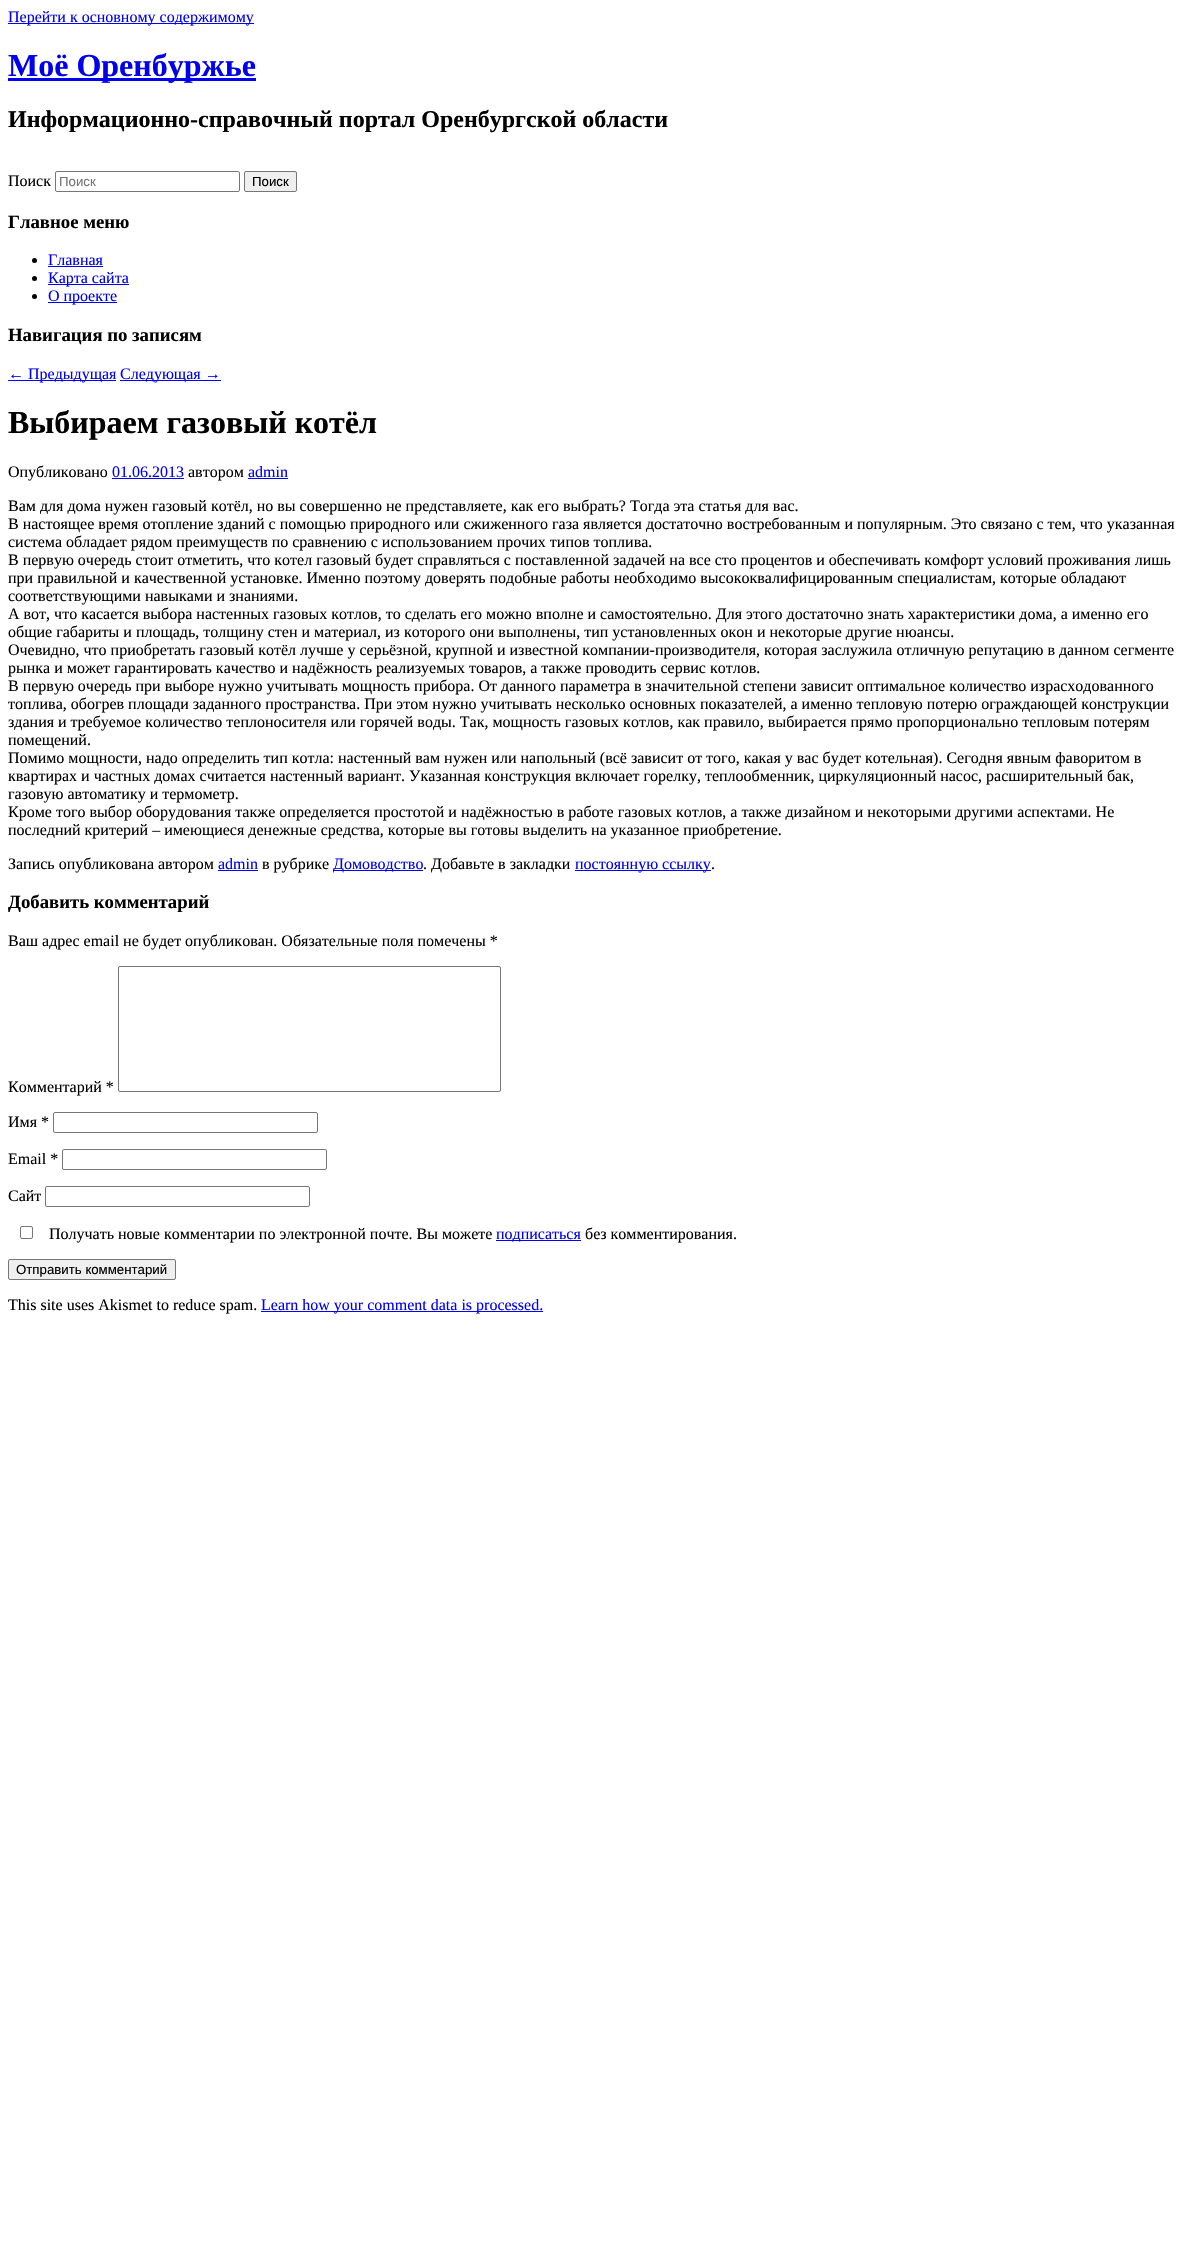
#include "include/core/SkBlurTypes.h"
#include "include/core/SkCanvas.h"
#include "include/core/SkData.h"
#include "include/core/SkFont.h"
#include "include/core/SkFontMgr.h"
#include "include/core/SkImage.h"
#include "include/core/SkMaskFilter.h"
#include "include/core/SkPaint.h"
#include "include/core/SkPathBuilder.h"
#include "include/core/SkTextBlob.h"
#include "include/effects/SkDashPathEffect.h"
#include "include/effects/SkGradientShader.h"
#include "include/utils/SkParsePath.h"

extern sk_sp<SkFontMgr> fontMgr;

void draw(SkCanvas* canvas) {
    SkPaint p;
    p.setAntiAlias(true);
    auto font = [&](const char* family, int weight, float size, bool italic = false) {
        SkFontStyle style(weight, SkFontStyle::kNormal_Width,
            italic ? SkFontStyle::kItalic_Slant : SkFontStyle::kUpright_Slant);
        SkFont result(fontMgr->matchFamilyStyle(family, style), size);
        result.setSubpixel(true);
        return result;
    };
    canvas->clear(0xFFFFFFFF);
    p.setColor(0xFF0000EE);
    canvas->drawRect(SkRect::MakeLTRB(8, 23, 254, 24), p);
    auto font1 = font("Liberation Serif", 400, 16);
    canvas->drawString("Перейти к основному содержимому", 8, 22, font1, p);
    canvas->drawRect(SkRect::MakeLTRB(8, 78, 256, 81), p);
    auto font2 = font("Liberation Serif", 700, 32);
    canvas->drawString("Моё Оренбуржье", 8, 76, font2, p);
    auto font3 = font("Liberation Serif", 700, 24);
    p.setColor(0xFF000000);
    canvas->drawString("Информационно-справочный портал Оренбургской области", 8, 127, font3, p);
    canvas->drawString("Поиск", 8, 186, font1, p);
    p.setStyle(SkPaint::kStroke_Style);
    p.setStrokeWidth(1);
    p.setColor(0xFF767676);
    canvas->drawRoundRect(SkRect::MakeLTRB(55.5f, 171.5f, 239.5f, 191.5f), 1.5f, 1.5f, p);
    auto font4 = font("Liberation Sans", 400, 13.25f);
    p.setStyle(SkPaint::kFill_Style);
    p.setColor(0xFF757575);
    canvas->drawString("Поиск", 59, 186, font4, p);
    p.setColor(0xFFEFEFEF);
    canvas->drawRoundRect(SkRect::MakeLTRB(244.5f, 171.5f, 296.5f, 191.5f), 1.5f, 1.5f, p);
    p.setStyle(SkPaint::kStroke_Style);
    p.setColor(0xFF767676);
    canvas->drawRoundRect(SkRect::MakeLTRB(244.5f, 171.5f, 296.5f, 191.5f), 1.5f, 1.5f, p);
    p.setStyle(SkPaint::kFill_Style);
    p.setColor(0xFF000000);
    canvas->drawString("Поиск", 252, 186, font4, p);
    auto font5 = font("Liberation Serif", 700, 18.75f);
    canvas->drawString("Главное меню", 8, 228, font5, p);
    canvas->drawCircle(34.5f, 260.5f, 2.5f, p);
    p.setColor(0xFF0000EE);
    canvas->drawString("Главная", 48, 265, font1, p);
    canvas->drawRect(SkRect::MakeLTRB(48, 266, 103, 267), p);
    p.setColor(0xFF000000);
    canvas->drawCircle(34.5f, 278.5f, 2.5f, p);
    p.setColor(0xFF0000EE);
    canvas->drawRect(SkRect::MakeLTRB(48, 284, 129, 285), p);
    canvas->drawString("Карта сайта", 48, 283, font1, p);
    p.setColor(0xFF000000);
    canvas->drawCircle(34.5f, 296.5f, 2.5f, p);
    p.setColor(0xFF0000EE);
    canvas->drawRect(SkRect::MakeLTRB(48, 302, 117, 303), p);
    canvas->drawString("О проекте", 48, 301, font1, p);
    p.setColor(0xFF000000);
    canvas->drawString("Навигация по записям", 8, 341, font5, p);
    p.setColor(0xFF0000EE);
    canvas->drawRect(SkRect::MakeLTRB(8, 380, 116, 381), p);
    canvas->drawString("← Предыдущая", 8, 379, font1, p);
    canvas->drawRect(SkRect::MakeLTRB(120, 380, 221, 381), p);
    canvas->drawString("Следующая →", 120, 379, font1, p);
    p.setColor(0xFF000000);
    canvas->drawString("Выбираем газовый котёл", 8, 433, font2, p);
    canvas->drawString("Опубликовано", 8, 477, font1, p);
    p.setColor(0xFF0000EE);
    canvas->drawString("01.06.2013", 112, 477, font1, p);
    canvas->drawRect(SkRect::MakeLTRB(112, 478, 184, 479), p);
    p.setColor(0xFF000000);
    canvas->drawString("автором", 188, 477, font1, p);
    p.setColor(0xFF0000EE);
    canvas->drawRect(SkRect::MakeLTRB(248, 478, 288, 479), p);
    canvas->drawString("admin", 248, 477, font1, p);
    p.setColor(0xFF000000);
    {
        const struct { const char* s; float x, y; } items[] = {
            {"Вам для дома нужен газовый котёл, но вы совершенно не представляете, как его выбрать? Тогда эта статья для вас.", 8, 511},
            {"В настоящее время отопление зданий с помощью природного или сжиженного газа является достаточно востребованным и популярным. Это связано с тем, что указанная", 8, 529},
            {"система обладает рядом преимуществ по сравнению с использованием прочих типов топлива.", 8, 547},
            {"В первую очередь стоит отметить, что котел газовый будет справляться с поставленной задачей на все сто процентов и обеспечивать комфорт условий проживания лишь", 8, 565},
            {"при правильной и качественной установке. Именно поэтому доверять подобные работы необходимо высококвалифицированным специалистам, которые обладают", 8, 583},
            {"соответствующими навыками и знаниями.", 8, 601},
            {"А вот, что касается выбора настенных газовых котлов, то сделать его можно вполне и самостоятельно. Для этого достаточно знать характеристики дома, а именно его", 8, 619},
            {"общие габариты и площадь, толщину стен и материал, из которого они выполнены, тип установленных окон и некоторые другие нюансы.", 8, 637},
            {"Очевидно, что приобретать газовый котёл лучше у серьёзной, крупной и известной компании-производителя, которая заслужила отличную репутацию в данном сегменте", 8, 655},
            {"рынка и может гарантировать качество и надёжность реализуемых товаров, а также проводить сервис котлов.", 8, 673},
            {"В первую очередь при выборе нужно учитывать мощность прибора. От данного параметра в значительной степени зависит оптимальное количество израсходованного", 8, 691},
            {"топлива, обогрев площади заданного пространства. При этом нужно учитывать несколько основных показателей, а именно тепловую потерю ограждающей конструкции", 8, 709},
            {"здания и требуемое количество теплоносителя или горячей воды. Так, мощность газовых котлов, как правило, выбирается прямо пропорционально тепловым потерям", 8, 727},
            {"помещений.", 8, 745},
            {"Помимо мощности, надо определить тип котла: настенный вам нужен или напольный (всё зависит от того, какая у вас будет котельная). Сегодня явным фаворитом в", 8, 763},
            {"квартирах и частных домах считается настенный вариант. Указанная конструкция включает горелку, теплообменник, циркуляционный насос, расширительный бак,", 8, 781},
            {"газовую автоматику и термометр.", 8, 799},
            {"Кроме того выбор оборудования также определяется простотой и надёжностью в работе газовых котлов, а также дизайном и некоторыми другими аспектами. Не", 8, 817},
            {"последний критерий – имеющиеся денежные средства, которые вы готовы выделить на указанное приобретение.", 8, 835},
            {"Запись опубликована автором", 8, 869},
        };
        for (auto [s, x, y] : items) {
            canvas->drawString(s, x, y, font1, p);
        }
    }
    p.setColor(0xFF0000EE);
    canvas->drawString("admin", 218, 869, font1, p);
    canvas->drawRect(SkRect::MakeLTRB(218, 870, 258, 871), p);
    p.setColor(0xFF000000);
    canvas->drawString("в рубрике", 262, 869, font1, p);
    p.setColor(0xFF0000EE);
    canvas->drawRect(SkRect::MakeLTRB(333, 870, 423, 871), p);
    canvas->drawString("Домоводство", 333, 869, font1, p);
    p.setColor(0xFF000000);
    canvas->drawString(". Добавьте в закладки", 423, 869, font1, p);
    p.setColor(0xFF0000EE);
    canvas->drawRect(SkRect::MakeLTRB(575, 870, 711, 871), p);
    canvas->drawString("постоянную ссылку", 575, 869, font1, p);
    p.setColor(0xFF000000);
    canvas->drawString(".", 711, 869, font1, p);
    canvas->drawString("Добавить комментарий", 8, 908, font5, p);
    canvas->drawString("Ваш адрес email не будет опубликован. Обязательные поля помечены *", 8, 946, font1, p);
    canvas->drawString("Комментарий *", 8, 1092, font1, p);
    p.setStyle(SkPaint::kStroke_Style);
    p.setColor(0xFF767676);
    canvas->drawRoundRect(SkRect::MakeLTRB(118.5f, 966.5f, 500.5f, 1091.5f), 1.5f, 1.5f, p);
    p.setStyle(SkPaint::kFill_Style);
    p.setColor(0xFF000000);
    canvas->drawString("Имя *", 8, 1127, font1, p);
    p.setStyle(SkPaint::kStroke_Style);
    p.setColor(0xFF767676);
    canvas->drawRoundRect(SkRect::MakeLTRB(53.5f, 1112.5f, 317.5f, 1132.5f), 1.5f, 1.5f, p);
    p.setStyle(SkPaint::kFill_Style);
    p.setColor(0xFF000000);
    canvas->drawString("Email *", 8, 1164, font1, p);
    p.setStyle(SkPaint::kStroke_Style);
    p.setColor(0xFF767676);
    canvas->drawRoundRect(SkRect::MakeLTRB(62.5f, 1149.5f, 326.5f, 1169.5f), 1.5f, 1.5f, p);
    p.setStyle(SkPaint::kFill_Style);
    p.setColor(0xFF000000);
    canvas->drawString("Сайт", 8, 1201, font1, p);
    p.setStyle(SkPaint::kStroke_Style);
    p.setColor(0xFF767676);
    canvas->drawRoundRect(SkRect::MakeLTRB(45.5f, 1186.5f, 309.5f, 1206.5f), 1.5f, 1.5f, p);
    canvas->drawRoundRect(SkRect::MakeLTRB(20.5f, 1226.5f, 32.5f, 1238.5f), 1.5f, 1.5f, p);
    p.setStyle(SkPaint::kFill_Style);
    p.setColor(0xFF000000);
    canvas->drawString("Получать новые комментарии по электронной почте. Вы можете", 49, 1239, font1, p);
    p.setColor(0xFF0000EE);
    canvas->drawRect(SkRect::MakeLTRB(496, 1240, 581, 1241), p);
    canvas->drawString("подписаться", 496, 1239, font1, p);
    p.setColor(0xFF000000);
    canvas->drawString("без комментирования.", 585, 1239, font1, p);
    p.setColor(0xFFEFEFEF);
    canvas->drawRoundRect(SkRect::MakeLTRB(8.5f, 1259.5f, 175.5f, 1279.5f), 1.5f, 1.5f, p);
    p.setStyle(SkPaint::kStroke_Style);
    p.setColor(0xFF767676);
    canvas->drawRoundRect(SkRect::MakeLTRB(8.5f, 1259.5f, 175.5f, 1279.5f), 1.5f, 1.5f, p);
    p.setStyle(SkPaint::kFill_Style);
    p.setColor(0xFF000000);
    canvas->drawString("Отправить комментарий", 16, 1274, font4, p);
    canvas->drawString("This site uses Akismet to reduce spam.", 8, 1310, font1, p);
    p.setColor(0xFF0000EE);
    canvas->drawRect(SkRect::MakeLTRB(261, 1311, 543, 1312), p);
    canvas->drawString("Learn how your comment data is processed.", 261, 1310, font1, p);
}
